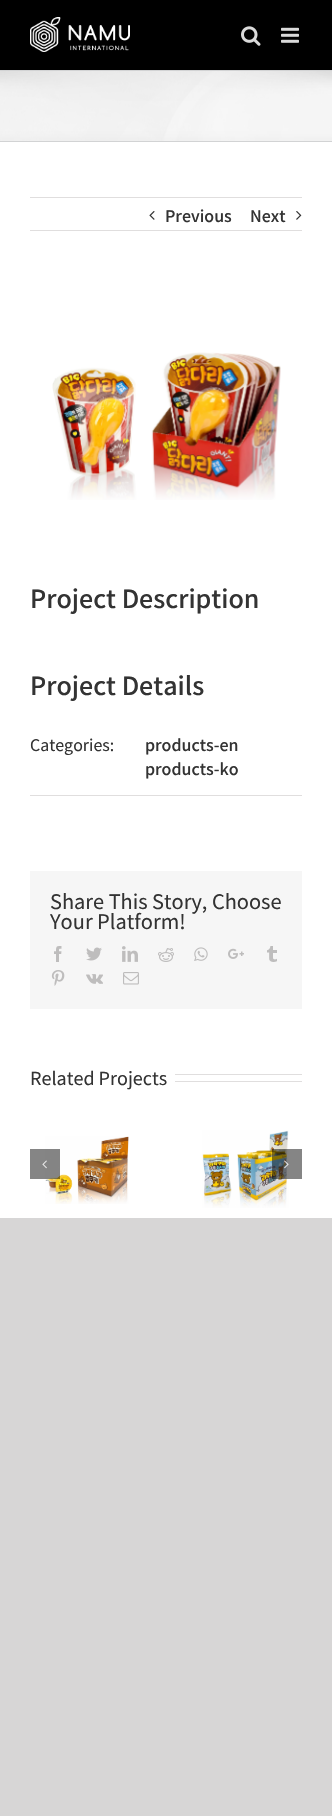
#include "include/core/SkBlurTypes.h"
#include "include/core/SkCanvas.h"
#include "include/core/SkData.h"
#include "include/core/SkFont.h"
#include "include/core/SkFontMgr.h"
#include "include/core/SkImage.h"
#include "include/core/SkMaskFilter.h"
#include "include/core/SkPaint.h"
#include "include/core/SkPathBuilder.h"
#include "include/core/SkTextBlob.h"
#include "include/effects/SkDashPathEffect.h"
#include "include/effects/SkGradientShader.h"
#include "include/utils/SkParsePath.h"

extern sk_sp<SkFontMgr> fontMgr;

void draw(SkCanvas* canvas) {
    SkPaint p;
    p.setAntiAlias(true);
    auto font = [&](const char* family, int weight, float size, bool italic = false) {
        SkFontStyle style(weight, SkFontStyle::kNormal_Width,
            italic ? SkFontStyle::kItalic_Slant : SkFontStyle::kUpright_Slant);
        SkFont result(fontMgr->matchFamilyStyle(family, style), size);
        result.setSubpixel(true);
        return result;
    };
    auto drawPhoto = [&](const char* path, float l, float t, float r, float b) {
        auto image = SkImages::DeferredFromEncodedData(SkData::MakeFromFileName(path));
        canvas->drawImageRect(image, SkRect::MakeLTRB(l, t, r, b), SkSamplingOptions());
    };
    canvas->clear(0xFFD7D6D6);
    p.setColor(0xFFFFFFFF);
    canvas->drawRect(SkRect::MakeLTRB(0, 142, 332, 1218), p);
    p.setColor(0xFF000000);
    canvas->drawRect(SkRect::MakeLTRB(0, 0, 332, 70), p);
    drawPhoto("media/1.png", 30, 17, 130, 52);
    drawPhoto("media/2.png", 241, 26, 261, 46);
    drawPhoto("media/3.png", 281, 27, 299, 43);
    p.setColor(0xFFF6F6F6);
    canvas->drawRect(SkRect::MakeLTRB(0, 71, 332, 141), p);
    drawPhoto("media/4.png", 0, 71, 332, 141);
    {
        const struct { float l, t, r, b; SkColor color; } items[] = {
            {0, 70, 332, 71, 0xFFD2D3D4},
            {0, 141, 332, 142, 0xFFD2D3D4},
            {30, 197, 302, 198, 0xFFE0DEDE},
            {30, 230, 302, 231, 0xFFE0DEDE},
        };
        for (auto [l, t, r, b, color] : items) {
            p.setColor(color);
            canvas->drawRect(SkRect::MakeLTRB(l, t, r, b), p);
        }
    }
    drawPhoto("media/5.png", 149, 211, 155, 220);
    auto font1 = font("Noto Sans KR", 100, 16);
    p.setColor(0xFF333333);
    canvas->drawString("Previous", 165, 222, font1, p);
    canvas->drawString("Next", 250, 222, font1, p);
    drawPhoto("media/6.png", 296, 211, 302, 220);
    drawPhoto("media/7.png", 52, 352, 281, 500);
    auto font2 = font("Noto Sans KR", 100, 25);
    canvas->drawString("Project Description", 30, 608, font2, p);
    canvas->drawString("Project Details", 30, 695, font2, p);
    p.setColor(0xFFE0DEDE);
    canvas->drawRect(SkRect::MakeLTRB(30, 795, 302, 796), p);
    auto font3 = font("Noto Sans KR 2", 100, 16);
    p.setColor(0xFF333333);
    canvas->drawString("Categories:", 30, 751, font3, p);
    canvas->drawString("products-en", 145, 751, font1, p);
    canvas->drawString("products-ko", 145, 775, font1, p);
    p.setColor(0xFFF6F6F6);
    canvas->drawRect(SkRect::MakeLTRB(30, 871, 302, 1009), p);
    auto font4 = font("Noto Sans KR 2", 100, 20);
    p.setColor(0xFF333333);
    canvas->drawString("Share This Story, Choose", 50, 909, font4, p);
    canvas->drawString("Your Platform!", 50, 929, font4, p);
    drawPhoto("media/8.png", 54, 946, 62, 962);
    drawPhoto("media/9.png", 86, 947, 102, 961);
    drawPhoto("media/10.png", 122, 946, 138, 962);
    drawPhoto("media/11.png", 158, 948, 174, 962);
    drawPhoto("media/12.png", 194, 947, 208, 961);
    drawPhoto("media/13.png", 228, 948, 244, 959);
    drawPhoto("media/14.png", 267, 946, 277, 962);
    drawPhoto("media/15.png", 51, 970, 65, 986);
    drawPhoto("media/16.png", 86, 974, 103, 984);
    drawPhoto("media/17.png", 123, 972, 139, 985);
    auto font5 = font("Noto Sans KR 2", 100, 18);
    canvas->drawString("Related Projects", 30, 1085, font5, p);
    p.setColor(0xFFE0DEDE);
    canvas->drawRect(SkRect::MakeLTRB(175, 1074, 302, 1075), p);
    canvas->drawRect(SkRect::MakeLTRB(175, 1081, 302, 1082), p);
    drawPhoto("media/18.png", 45, 1136, 129, 1204);
    drawPhoto("media/19.png", 202, 1130, 289, 1208);
    p.setColor(0x7A000000);
    canvas->drawRect(SkRect::MakeLTRB(30, 1149, 60, 1179), p);
    drawPhoto("media/20.png", 42, 1160, 47, 1169);
    canvas->drawRect(SkRect::MakeLTRB(272, 1149, 302, 1179), p);
    drawPhoto("media/21.png", 284, 1160, 289, 1169);
}
